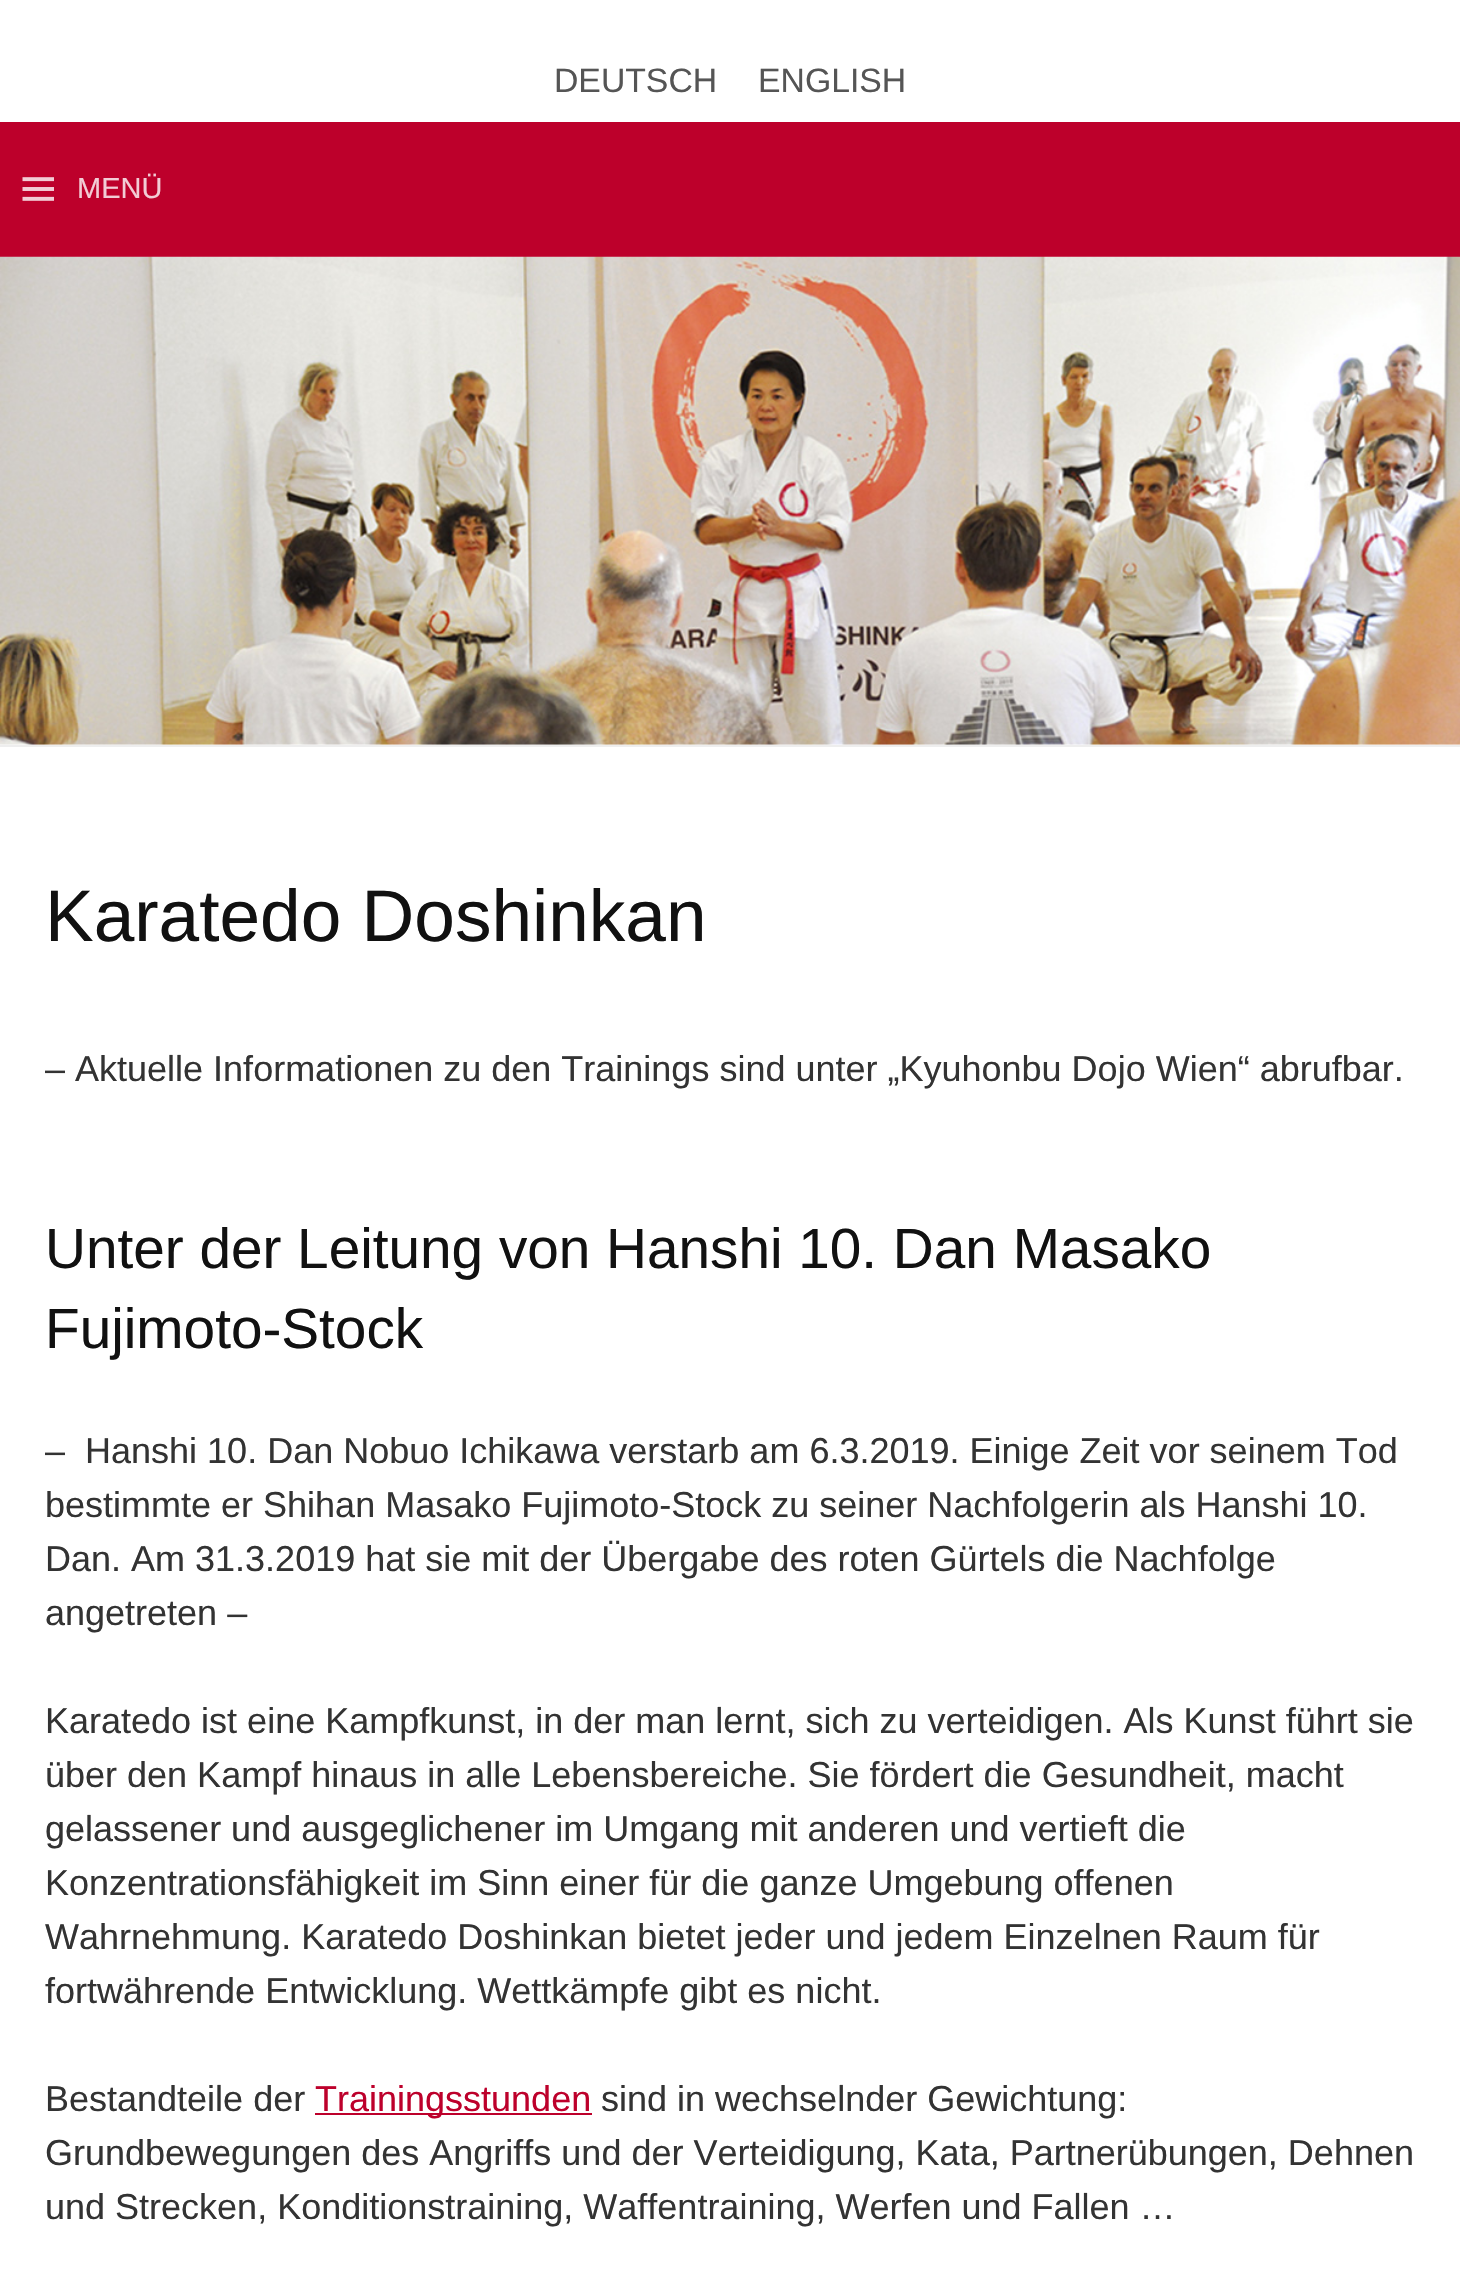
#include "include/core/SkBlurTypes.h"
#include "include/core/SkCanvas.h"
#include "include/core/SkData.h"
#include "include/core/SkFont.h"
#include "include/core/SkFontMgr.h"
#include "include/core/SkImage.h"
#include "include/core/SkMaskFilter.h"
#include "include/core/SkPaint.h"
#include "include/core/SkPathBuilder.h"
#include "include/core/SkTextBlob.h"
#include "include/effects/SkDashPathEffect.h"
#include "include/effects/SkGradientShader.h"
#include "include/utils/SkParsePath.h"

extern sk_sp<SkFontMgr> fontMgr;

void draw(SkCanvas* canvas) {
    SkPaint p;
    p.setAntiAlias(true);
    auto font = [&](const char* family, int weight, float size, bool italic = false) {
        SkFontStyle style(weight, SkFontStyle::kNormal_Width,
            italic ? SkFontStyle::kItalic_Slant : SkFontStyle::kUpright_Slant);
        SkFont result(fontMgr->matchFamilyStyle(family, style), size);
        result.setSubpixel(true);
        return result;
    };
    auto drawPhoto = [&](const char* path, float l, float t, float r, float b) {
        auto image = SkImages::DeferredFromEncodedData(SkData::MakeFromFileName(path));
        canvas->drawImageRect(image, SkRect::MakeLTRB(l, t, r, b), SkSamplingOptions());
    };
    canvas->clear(0xFFFFFFFF);
    p.setColor(0xFFEEEEEE);
    canvas->drawRect(SkRect::MakeLTRB(0, 745, 1460, 747), p);
    auto font1 = font("Liberation Sans", 400, 33.75f);
    p.setColor(0xFF555555);
    canvas->drawString("DEUTSCH", 554, 92, font1, p);
    canvas->drawString("ENGLISH", 758, 92, font1, p);
    p.setColor(0xFFBD002B);
    canvas->drawRect(SkRect::MakeLTRB(0, 122, 1460, 257), p);
    drawPhoto("media/1.png", 22, 177, 54, 201);
    auto font2 = font("Liberation Sans", 400, 29);
    p.setColor(0xFFF2CCD5);
    canvas->drawString("MENÜ", 77, 198, font2, p);
    drawPhoto("media/2.png", 0, 256, 1460, 745);
    auto font3 = font("Liberation Sans", 400, 73);
    p.setColor(0xFF111111);
    canvas->drawString("Karatedo Doshinkan", 45, 941, font3, p);
    auto font4 = font("Liberation Sans", 400, 36);
    p.setColor(0xFF333333);
    canvas->drawString("– Aktuelle Informationen zu den Trainings sind unter „Kyuhonbu Dojo Wien“ abrufbar.", 45, 1081, font4, p);
    auto font5 = font("Liberation Sans", 400, 56.7f);
    p.setColor(0xFF111111);
    canvas->drawString("Unter der Leitung von Hanshi 10. Dan Masako", 45, 1268, font5, p);
    canvas->drawString("Fujimoto-Stock", 45, 1348, font5, p);
    p.setColor(0xFF333333);
    {
        const struct { const char* s; float x, y; } items[] = {
            {"–  Hanshi 10. Dan Nobuo Ichikawa verstarb am 6.3.2019. Einige Zeit vor seinem Tod", 45, 1463},
            {"bestimmte er Shihan Masako Fujimoto-Stock zu seiner Nachfolgerin als Hanshi 10.", 45, 1517},
            {"Dan. Am 31.3.2019 hat sie mit der Übergabe des roten Gürtels die Nachfolge", 45, 1571},
            {"angetreten –", 45, 1625},
            {"Karatedo ist eine Kampfkunst, in der man lernt, sich zu verteidigen. Als Kunst führt sie", 45, 1733},
            {"über den Kampf hinaus in alle Lebensbereiche. Sie fördert die Gesundheit, macht", 45, 1787},
            {"gelassener und ausgeglichener im Umgang mit anderen und vertieft die", 45, 1841},
            {"Konzentrationsfähigkeit im Sinn einer für die ganze Umgebung offenen", 45, 1895},
            {"Wahrnehmung. Karatedo Doshinkan bietet jeder und jedem Einzelnen Raum für", 45, 1949},
            {"fortwährende Entwicklung. Wettkämpfe gibt es nicht.", 45, 2003},
            {"Bestandteile der", 45, 2111},
        };
        for (auto [s, x, y] : items) {
            canvas->drawString(s, x, y, font4, p);
        }
    }
    p.setColor(0xFFBD002B);
    canvas->drawRect(SkRect::MakeLTRB(315, 2113, 592, 2115), p);
    canvas->drawString("Trainingsstunden", 315, 2111, font4, p);
    p.setColor(0xFF333333);
    {
        const struct { const char* s; float x, y; } items[] = {
            {"sind in wechselnder Gewichtung:", 601, 2111},
            {"Grundbewegungen des Angriffs und der Verteidigung, Kata, Partnerübungen, Dehnen", 45, 2165},
            {"und Strecken, Konditionstraining, Waffentraining, Werfen und Fallen …", 45, 2219},
        };
        for (auto [s, x, y] : items) {
            canvas->drawString(s, x, y, font4, p);
        }
    }
}
